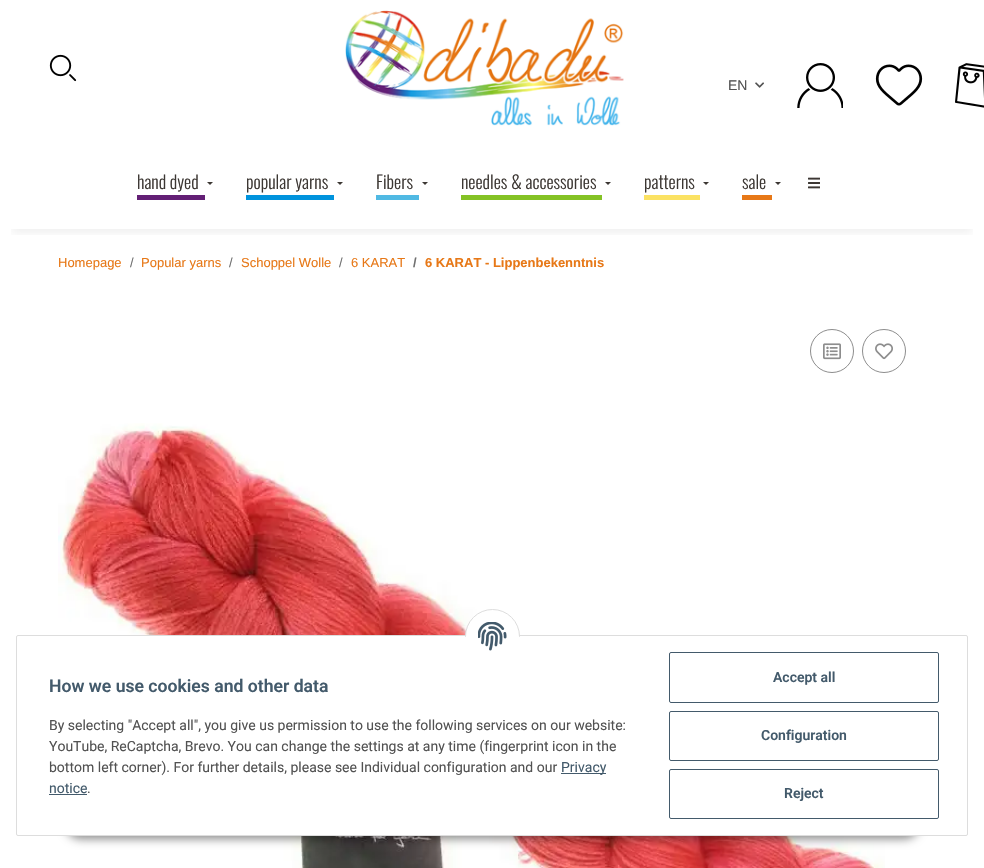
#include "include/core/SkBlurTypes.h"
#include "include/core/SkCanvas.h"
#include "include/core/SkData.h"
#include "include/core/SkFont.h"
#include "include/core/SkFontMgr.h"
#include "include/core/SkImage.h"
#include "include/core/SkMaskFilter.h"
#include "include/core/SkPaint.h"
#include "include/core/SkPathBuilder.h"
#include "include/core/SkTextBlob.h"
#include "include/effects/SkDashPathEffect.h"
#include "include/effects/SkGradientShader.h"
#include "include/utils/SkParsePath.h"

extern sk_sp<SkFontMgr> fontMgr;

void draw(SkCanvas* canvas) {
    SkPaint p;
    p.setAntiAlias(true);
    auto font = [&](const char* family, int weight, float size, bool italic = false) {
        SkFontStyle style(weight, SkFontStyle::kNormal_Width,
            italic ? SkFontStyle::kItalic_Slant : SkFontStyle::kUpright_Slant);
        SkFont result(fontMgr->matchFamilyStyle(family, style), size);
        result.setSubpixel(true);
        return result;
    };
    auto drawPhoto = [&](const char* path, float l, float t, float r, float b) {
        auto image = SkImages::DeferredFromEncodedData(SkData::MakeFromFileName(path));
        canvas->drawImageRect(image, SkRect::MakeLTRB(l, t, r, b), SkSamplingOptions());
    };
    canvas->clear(0xFFFFFFFF);
    drawPhoto("media/1.png", 49, 54, 77, 82);
    drawPhoto("media/2.png", 345, 10, 624, 126);
    auto font1 = font("Liberation Sans", 400, 14);
    p.setColor(0xFF525252);
    canvas->drawString("EN", 728, 90, font1, p);
    drawPhoto("media/3.png", 755, 82, 764, 88);
    drawPhoto("media/4.png", 797, 63, 843, 108);
    drawPhoto("media/5.png", 875, 64, 923, 106);
    drawPhoto("media/6.png", 955, 63, 984, 108);
    canvas->save();
    canvas->clipRect(SkRect::MakeLTRB(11, 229, 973, 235));
    p.setColor(0x0F000000);
    p.setMaskFilter(SkMaskFilter::MakeBlur(kNormal_SkBlurStyle, 4.5f));
    canvas->drawRect(SkRect::MakeLTRB(12, 182, 972, 233), p);
    p.setMaskFilter(nullptr);
    canvas->restore();
    p.setColor(0xFF631F75);
    canvas->drawRect(SkRect::MakeLTRB(137, 195, 205, 200), p);
    auto font2 = font("Oswald", 300, 18);
    p.setColor(0xFF3C3733);
    canvas->drawString("hand dyed", 137, 189, font2, p);
    canvas->drawPath(SkPathBuilder().moveTo(207, 182).lineTo(213, 182).lineTo(210, 185).close().detach(), p);
    p.setColor(0xFF0093DD);
    canvas->drawRect(SkRect::MakeLTRB(246, 195, 334, 200), p);
    p.setColor(0xFF3C3733);
    canvas->drawString("popular yarns", 246, 189, font2, p);
    canvas->drawPath(SkPathBuilder().moveTo(337, 182).lineTo(343, 182).lineTo(340, 185).close().detach(), p);
    p.setColor(0xFF50B9E3);
    canvas->drawRect(SkRect::MakeLTRB(376, 195, 419, 200), p);
    p.setColor(0xFF3C3733);
    canvas->drawString("Fibers", 376, 189, font2, p);
    canvas->drawPath(SkPathBuilder().moveTo(422, 182).lineTo(428, 182).lineTo(425, 185).close().detach(), p);
    p.setColor(0xFF84C225);
    canvas->drawRect(SkRect::MakeLTRB(461, 195, 602, 200), p);
    p.setColor(0xFF3C3733);
    canvas->drawString("needles & accessories", 461, 189, font2, p);
    canvas->drawPath(SkPathBuilder().moveTo(605, 182).lineTo(611, 182).lineTo(608, 185).close().detach(), p);
    p.setColor(0xFFFBE263);
    canvas->drawRect(SkRect::MakeLTRB(644, 195, 700, 200), p);
    p.setColor(0xFF3C3733);
    canvas->drawString("patterns", 644, 189, font2, p);
    canvas->drawPath(SkPathBuilder().moveTo(703, 182).lineTo(709, 182).lineTo(706, 185).close().detach(), p);
    p.setColor(0xFFE77817);
    canvas->drawRect(SkRect::MakeLTRB(742, 195, 772, 200), p);
    p.setColor(0xFF3C3733);
    canvas->drawString("sale", 742, 189, font2, p);
    canvas->drawPath(SkPathBuilder().moveTo(775, 182).lineTo(781, 182).lineTo(778, 185).close().detach(), p);
    drawPhoto("media/7.png", 808, 177, 820, 189);
    auto font3 = font("Liberation Sans", 400, 13);
    p.setColor(0xFFE77817);
    canvas->drawString("Homepage", 58, 267, font3, p);
    p.setColor(0xFF707070);
    canvas->drawString("/", 130, 267, font3, p);
    p.setColor(0xFFE77817);
    canvas->drawString("Popular yarns", 141, 267, font3, p);
    p.setColor(0xFF707070);
    canvas->drawString("/", 229, 267, font3, p);
    p.setColor(0xFFE77817);
    canvas->drawString("Schoppel Wolle", 241, 267, font3, p);
    p.setColor(0xFF707070);
    canvas->drawString("/", 339, 267, font3, p);
    p.setColor(0xFFE77817);
    canvas->drawString("6 KARAT", 351, 267, font3, p);
    auto font4 = font("Liberation Sans", 700, 13);
    p.setColor(0xFF707070);
    canvas->drawString("/", 413, 267, font4, p);
    p.setColor(0xFFE77817);
    canvas->drawString("6 KARAT - Lippenbekenntnis", 425, 267, font4, p);
    p.setStyle(SkPaint::kStroke_Style);
    p.setStrokeWidth(1);
    p.setColor(0xFF8D8D8D);
    canvas->drawCircle(832, 351, 21.5f, p);
    drawPhoto("media/8.png", 823, 343, 841, 360);
    canvas->drawCircle(884, 351, 21.5f, p);
    drawPhoto("media/9.png", 875, 343, 893, 360);
    drawPhoto("media/10.png", 58, 423, 885, 868);
    p.setStyle(SkPaint::kFill_Style);
    p.setColor(0x73000000);
    p.setMaskFilter(SkMaskFilter::MakeBlur(kNormal_SkBlurStyle, 5));
    canvas->drawRoundRect(SkRect::MakeLTRB(65, 807, 920, 839), 16, 16, p);
    p.setMaskFilter(nullptr);
    p.setColor(0xFFFFFFFF);
    canvas->drawRoundRect(SkRect::MakeLTRB(16.5f, 635.5f, 967.5f, 835.5f), 1.5f, 1.5f, p);
    p.setStyle(SkPaint::kStroke_Style);
    p.setColor(0xFFDDDDDD);
    canvas->drawRoundRect(SkRect::MakeLTRB(16.5f, 635.5f, 967.5f, 835.5f), 1.5f, 1.5f, p);
    p.setStyle(SkPaint::kFill_Style);
    p.setColor(0xFFFFFFFF);
    canvas->drawCircle(492.5f, 636.5f, 27, p);
    p.setStyle(SkPaint::kStroke_Style);
    p.setColor(0xFFDDDDDD);
    canvas->drawCircle(492.5f, 636.5f, 27, p);
    p.setStyle(SkPaint::kFill_Style);
    p.setColor(0xFFFFFFFF);
    canvas->drawRect(SkRect::MakeLTRB(465, 637, 520, 664), p);
    drawPhoto("media/11.png", 478, 622, 507, 651);
    auto font5 = font("Roboto", 600, 17.6f);
    p.setColor(0xFF435A6B);
    canvas->drawString("How we use cookies and other data", 49, 692, font5, p);
    auto font6 = font("Roboto", 400, 14);
    p.setColor(0xFF525252);
    {
        const struct { const char* s; float x, y; } items[] = {
            {"By selecting \"Accept all\", you give us permission to use the following services on our website:", 49, 730},
            {"YouTube, ReCaptcha, Brevo. You can change the settings at any time (fingerprint icon in the", 49, 751},
            {"bottom left corner). For further details, please see Individual configuration and our", 49, 772},
        };
        for (auto [s, x, y] : items) {
            canvas->drawString(s, x, y, font6, p);
        }
    }
    p.setColor(0xFF435A6B);
    canvas->drawRect(SkRect::MakeLTRB(561, 773, 606, 774), p);
    canvas->drawString("Privacy", 561, 772, font6, p);
    canvas->drawString("notice", 49, 793, font6, p);
    canvas->drawRect(SkRect::MakeLTRB(49, 794, 87, 795), p);
    p.setColor(0xFF525252);
    canvas->drawString(".", 87, 793, font6, p);
    p.setStyle(SkPaint::kStroke_Style);
    p.setColor(0xFF435A6B);
    canvas->drawRoundRect(SkRect::MakeLTRB(669.5f, 652.5f, 938.5f, 702.5f), 1.5f, 1.5f, p);
    auto font7 = font("Roboto", 600, 14);
    p.setStyle(SkPaint::kFill_Style);
    canvas->drawString("Accept all", 773, 682, font7, p);
    p.setStyle(SkPaint::kStroke_Style);
    canvas->drawRoundRect(SkRect::MakeLTRB(669.5f, 711.5f, 938.5f, 760.5f), 1.5f, 1.5f, p);
    p.setStyle(SkPaint::kFill_Style);
    canvas->drawString("Configuration", 761, 740, font7, p);
    p.setStyle(SkPaint::kStroke_Style);
    canvas->drawRoundRect(SkRect::MakeLTRB(669.5f, 769.5f, 938.5f, 818.5f), 1.5f, 1.5f, p);
    p.setStyle(SkPaint::kFill_Style);
    canvas->drawString("Reject", 784, 798, font7, p);
}
